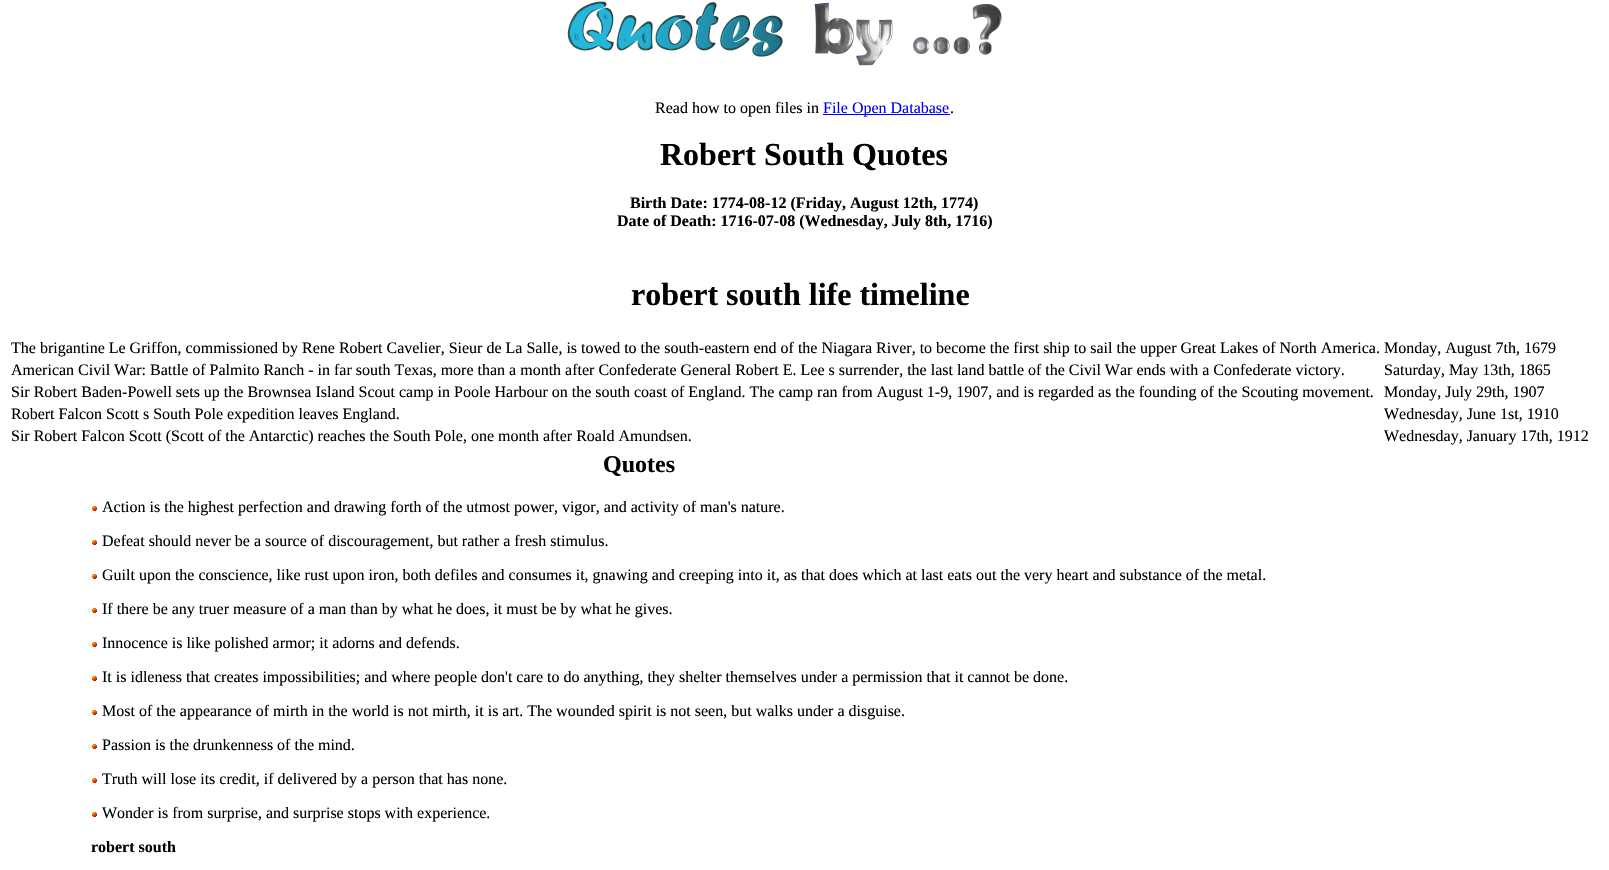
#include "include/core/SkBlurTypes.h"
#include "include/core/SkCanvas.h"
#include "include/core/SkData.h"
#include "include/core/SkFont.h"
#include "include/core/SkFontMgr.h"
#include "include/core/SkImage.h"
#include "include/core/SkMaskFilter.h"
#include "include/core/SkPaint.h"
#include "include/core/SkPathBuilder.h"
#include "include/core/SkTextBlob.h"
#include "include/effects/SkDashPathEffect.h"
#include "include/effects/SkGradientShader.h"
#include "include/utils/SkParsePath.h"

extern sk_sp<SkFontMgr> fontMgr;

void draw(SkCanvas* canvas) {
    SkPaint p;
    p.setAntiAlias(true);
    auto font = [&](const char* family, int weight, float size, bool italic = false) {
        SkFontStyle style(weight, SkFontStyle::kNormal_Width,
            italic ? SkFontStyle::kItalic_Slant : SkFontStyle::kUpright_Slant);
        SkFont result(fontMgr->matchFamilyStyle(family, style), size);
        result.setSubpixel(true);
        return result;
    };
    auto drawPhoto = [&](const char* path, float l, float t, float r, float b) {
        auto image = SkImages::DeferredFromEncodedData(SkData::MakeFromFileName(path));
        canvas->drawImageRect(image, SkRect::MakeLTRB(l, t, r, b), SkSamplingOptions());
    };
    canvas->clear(0xFFFFFFFF);
    drawPhoto("media/1.png", 567, 1, 1002, 66);
    auto font1 = font("Liberation Serif", 400, 16);
    p.setColor(0xFF000000);
    canvas->drawString("Read how to open files in", 655, 113, font1, p);
    p.setColor(0xFF0000EE);
    canvas->drawRect(SkRect::MakeLTRB(823, 114, 950, 115), p);
    canvas->drawString("File Open Database", 823, 113, font1, p);
    p.setColor(0xFF000000);
    canvas->drawString(".", 950, 113, font1, p);
    auto font2 = font("Liberation Serif", 700, 32);
    canvas->drawString("Robert South Quotes", 660, 165, font2, p);
    auto font3 = font("Liberation Serif", 700, 16);
    canvas->drawString("Birth Date: 1774-08-12 (Friday, August 12th, 1774)", 630, 208, font3, p);
    canvas->drawString("Date of Death: 1716-07-08 (Wednesday, July 8th, 1716)", 617, 226, font3, p);
    canvas->drawString("robert south life timeline", 631, 305, font2, p);
    {
        const struct { const char* s; float x, y; } items[] = {
            {"The brigantine Le Griffon, commissioned by Rene Robert Cavelier, Sieur de La Salle, is towed to the south-eastern end of the Niagara River, to become the first ship to sail the upper Great Lakes of North America. Monday, August 7th, 1679", 11, 353},
            {"American Civil War: Battle of Palmito Ranch - in far south Texas, more than a month after Confederate General Robert E. Lee s surrender, the last land battle of the Civil War ends with a Confederate victory.", 11, 375},
            {"Saturday, May 13th, 1865", 1384, 375},
            {"Sir Robert Baden-Powell sets up the Brownsea Island Scout camp in Poole Harbour on the south coast of England. The camp ran from August 1-9, 1907, and is regarded as the founding of the Scouting movement.", 11, 397},
            {"Monday, July 29th, 1907", 1384, 397},
            {"Robert Falcon Scott s South Pole expedition leaves England.", 11, 419},
            {"Wednesday, June 1st, 1910", 1384, 419},
            {"Sir Robert Falcon Scott (Scott of the Antarctic) reaches the South Pole, one month after Roald Amundsen.", 11, 441},
            {"Wednesday, January 17th, 1912", 1384, 441},
        };
        for (auto [s, x, y] : items) {
            canvas->drawString(s, x, y, font1, p);
        }
    }
    auto font4 = font("Liberation Serif", 700, 24);
    canvas->drawString("Quotes", 603, 472, font4, p);
    drawPhoto("media/2.png", 92, 506, 97, 511);
    canvas->drawString("Action is the highest perfection and drawing forth of the utmost power, vigor, and activity of man's nature.", 102, 512, font1, p);
    drawPhoto("media/2.png", 92, 540, 97, 545);
    canvas->drawString("Defeat should never be a source of discouragement, but rather a fresh stimulus.", 102, 546, font1, p);
    drawPhoto("media/2.png", 92, 574, 97, 579);
    canvas->drawString("Guilt upon the conscience, like rust upon iron, both defiles and consumes it, gnawing and creeping into it, as that does which at last eats out the very heart and substance of the metal.", 102, 580, font1, p);
    drawPhoto("media/2.png", 92, 608, 97, 613);
    canvas->drawString("If there be any truer measure of a man than by what he does, it must be by what he gives.", 102, 614, font1, p);
    drawPhoto("media/2.png", 92, 642, 97, 647);
    canvas->drawString("Innocence is like polished armor; it adorns and defends.", 102, 648, font1, p);
    drawPhoto("media/2.png", 92, 676, 97, 681);
    canvas->drawString("It is idleness that creates impossibilities; and where people don't care to do anything, they shelter themselves under a permission that it cannot be done.", 102, 682, font1, p);
    drawPhoto("media/2.png", 92, 710, 97, 715);
    canvas->drawString("Most of the appearance of mirth in the world is not mirth, it is art. The wounded spirit is not seen, but walks under a disguise.", 102, 716, font1, p);
    drawPhoto("media/2.png", 92, 744, 97, 749);
    canvas->drawString("Passion is the drunkenness of the mind.", 102, 750, font1, p);
    drawPhoto("media/2.png", 92, 778, 97, 783);
    canvas->drawString("Truth will lose its credit, if delivered by a person that has none.", 102, 784, font1, p);
    drawPhoto("media/2.png", 92, 812, 97, 817);
    canvas->drawString("Wonder is from surprise, and surprise stops with experience.", 102, 818, font1, p);
    canvas->drawString("robert south", 91, 852, font3, p);
}
